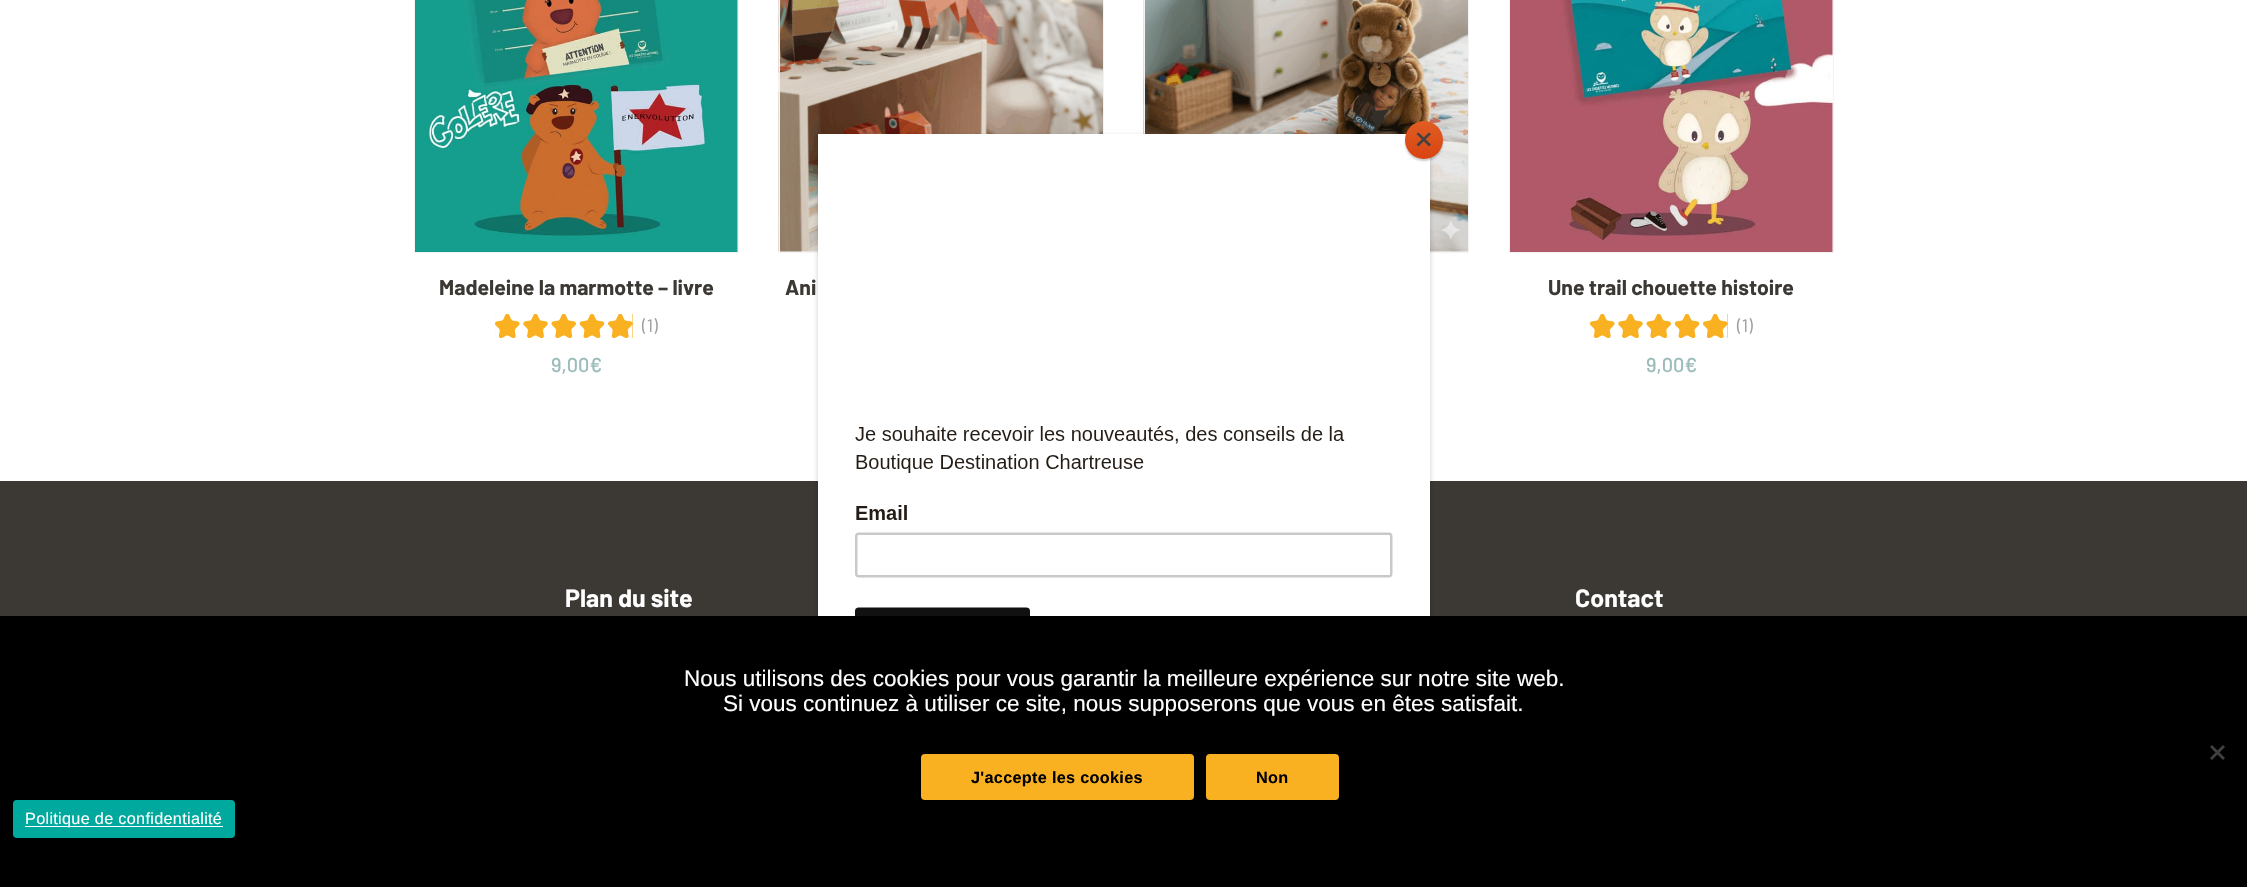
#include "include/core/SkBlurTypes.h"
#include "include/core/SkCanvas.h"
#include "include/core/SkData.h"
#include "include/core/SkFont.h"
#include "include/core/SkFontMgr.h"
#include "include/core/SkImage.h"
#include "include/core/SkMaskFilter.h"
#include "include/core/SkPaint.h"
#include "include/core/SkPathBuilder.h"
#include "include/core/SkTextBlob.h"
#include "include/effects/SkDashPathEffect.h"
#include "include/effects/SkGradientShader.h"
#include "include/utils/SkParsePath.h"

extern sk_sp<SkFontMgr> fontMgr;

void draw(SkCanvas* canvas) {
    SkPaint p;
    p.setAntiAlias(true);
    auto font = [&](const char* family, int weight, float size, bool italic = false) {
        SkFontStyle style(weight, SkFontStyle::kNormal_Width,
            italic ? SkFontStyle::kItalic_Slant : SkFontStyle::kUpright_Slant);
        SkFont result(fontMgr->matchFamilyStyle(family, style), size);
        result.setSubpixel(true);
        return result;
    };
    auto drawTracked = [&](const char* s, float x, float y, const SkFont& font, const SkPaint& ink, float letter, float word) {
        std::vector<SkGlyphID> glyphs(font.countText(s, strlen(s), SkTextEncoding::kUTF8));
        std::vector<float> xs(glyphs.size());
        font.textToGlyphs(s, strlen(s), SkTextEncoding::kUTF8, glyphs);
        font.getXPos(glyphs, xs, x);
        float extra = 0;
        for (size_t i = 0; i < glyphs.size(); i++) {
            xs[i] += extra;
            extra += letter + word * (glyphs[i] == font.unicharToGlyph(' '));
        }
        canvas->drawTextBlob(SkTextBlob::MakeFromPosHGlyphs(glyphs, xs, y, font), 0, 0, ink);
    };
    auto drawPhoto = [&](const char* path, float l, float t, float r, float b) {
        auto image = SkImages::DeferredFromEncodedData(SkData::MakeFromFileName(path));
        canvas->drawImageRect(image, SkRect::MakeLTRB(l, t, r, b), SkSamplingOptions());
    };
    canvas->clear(0xFFFFFFFF);
    drawPhoto("media/2.png", 1143, 0, 1468, 252);
    p.setStyle(SkPaint::kStroke_Style);
    p.setStrokeWidth(1);
    p.setColor(0xFFF3F3F3);
    canvas->drawRect(SkRect::MakeLTRB(1144.5f, -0.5f, 1468.5f, 252.5f), p);
    drawPhoto("media/5.png", 778, 0, 1103, 252);
    canvas->drawRect(SkRect::MakeLTRB(779.5f, -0.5f, 1103.5f, 252.5f), p);
    p.setStyle(SkPaint::kFill_Style);
    p.setColor(0xFF3C3935);
    canvas->drawRect(SkRect::MakeLTRB(0, 481, 2247, 616), p);
    p.setColor(0x33000000);
    p.setMaskFilter(SkMaskFilter::MakeBlur(kNormal_SkBlurStyle, 2.5f));
    canvas->drawRect(SkRect::MakeLTRB(818, 136, 1430, 718), p);
    p.setMaskFilter(nullptr);
    drawPhoto("media/1.png", 818, 134, 1430, 616);
    p.setMaskFilter(SkMaskFilter::MakeBlur(kNormal_SkBlurStyle, 1));
    canvas->drawRoundRect(SkRect::MakeLTRB(1405, 124, 1443, 161), 18.5f, 18.5f, p);
    p.setMaskFilter(nullptr);
    {
        const SkColor colors[] = {0xFFE05D22, 0xFFD94412};
        const float stops[] = {0, 1};
        const SkPoint ends[] = {{1424, 121}, {1424, 159}};
        p.setShader(SkGradientShader::MakeLinear(ends, colors, stops, 2, SkTileMode::kClamp));
        p.setAlpha(255);
    }
    canvas->drawCircle(1424, 140, 19, p);
    p.setShader(nullptr);
    p.setColor(0xFF414141);
    canvas->drawPath(SkPathBuilder().moveTo(1429, 132.5f).lineTo(1431, 134).lineTo(1418.5f, 146.5f).lineTo(1416.5f, 144.5f).close().detach(), p);
    canvas->drawPath(SkPathBuilder().moveTo(1416.5f, 134).lineTo(1418.5f, 132.5f).lineTo(1431, 144.5f).lineTo(1429, 146.5f).close().detach(), p);
    drawPhoto("media/3.png", 415, 0, 738, 252);
    p.setStyle(SkPaint::kStroke_Style);
    p.setColor(0xFFF3F3F3);
    canvas->drawRect(SkRect::MakeLTRB(414.5f, -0.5f, 738.5f, 252.5f), p);
    auto font1 = font("Barlow", 700, 21.25f);
    p.setStyle(SkPaint::kFill_Style);
    p.setColor(0xFF3C3935);
    canvas->drawString("Madeleine la marmotte – livre", 439, 295, font1, p);
    p.setColor(0xFFF9B122);
    canvas->drawRect(SkRect::MakeLTRB(495, 314, 633, 338), p);
    drawPhoto("media/4.png", 495, 314, 633, 338);
    auto font2 = font("Barlow", 400, 18);
    p.setColor(0xFF9F9D9C);
    canvas->drawString("(1)", 642, 332, font2, p);
    auto font3 = font("Barlow", 500, 20);
    p.setColor(0xFF9BBCBA);
    canvas->drawString("9,00€", 551, 372, font3, p);
    p.setColor(0xFF3C3935);
    canvas->drawString("Ani", 785, 295, font1, p);
    drawPhoto("media/6.png", 1510, 0, 1833, 252);
    p.setStyle(SkPaint::kStroke_Style);
    p.setColor(0xFFF3F3F3);
    canvas->drawRect(SkRect::MakeLTRB(1509.5f, -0.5f, 1833.5f, 252.5f), p);
    p.setStyle(SkPaint::kFill_Style);
    p.setColor(0xFF3C3935);
    canvas->drawString("Une trail chouette histoire", 1548, 295, font1, p);
    p.setColor(0xFFF9B122);
    canvas->drawRect(SkRect::MakeLTRB(1590, 314, 1728, 338), p);
    drawPhoto("media/4.png", 1590, 314, 1728, 338);
    p.setColor(0xFF9F9D9C);
    canvas->drawString("(1)", 1737, 332, font2, p);
    p.setColor(0xFF9BBCBA);
    canvas->drawString("9,00€", 1646, 372, font3, p);
    auto font4 = font("Barlow", 700, 25);
    p.setColor(0xFFFFFFFF);
    canvas->drawString("Plan du site", 565, 607, font4, p);
    canvas->drawString("Contact", 1575, 607, font4, p);
    p.setColor(0xFF000000);
    canvas->drawRect(SkRect::MakeLTRB(0, 616, 2247, 887), p);
    auto font5 = font("Liberation Sans", 400, 22.5f);
    p.setColor(0xFFFFFFFF);
    canvas->drawString("Nous utilisons des cookies pour vous garantir la meilleure expérience sur notre site web.", 684, 686, font5, p);
    canvas->drawString("Si vous continuez à utiliser ce site, nous supposerons que vous en êtes satisfait.", 723, 711, font5, p);
    p.setColor(0xFF404040);
    canvas->drawPath(SkPathBuilder().moveTo(2223, 745).lineTo(2225, 747).lineTo(2212, 760).lineTo(2210, 758).close().detach(), p);
    canvas->drawPath(SkPathBuilder().moveTo(2210, 747).lineTo(2212, 745).lineTo(2225, 758).lineTo(2223, 760).close().detach(), p);
    p.setColor(0xFFF9B122);
    canvas->drawRoundRect(SkRect::MakeLTRB(921, 754, 1194, 800), 4, 4, p);
    auto font6 = font("Liberation Sans", 700, 16.25f);
    p.setColor(0xFF000000);
    drawTracked("J'accepte les cookies", 971, 783, font6, p, 0.3f, 0);
    p.setColor(0xFFF9B122);
    canvas->drawRoundRect(SkRect::MakeLTRB(1206, 754, 1339, 800), 4, 4, p);
    p.setColor(0xFF000000);
    drawTracked("Non", 1256, 783, font6, p, 0.3f, 0);
    p.setColor(0xFF00A99D);
    canvas->drawRoundRect(SkRect::MakeLTRB(13, 800, 235, 838), 4, 4, p);
    p.setColor(0xFFFFFFFF);
    canvas->drawRect(SkRect::MakeLTRB(25, 826, 223, 827), p);
    auto font7 = font("Liberation Sans", 400, 16.25f);
    drawTracked("Politique de confidentialité", 25, 824, font7, p, 0.3f, 0);
}
